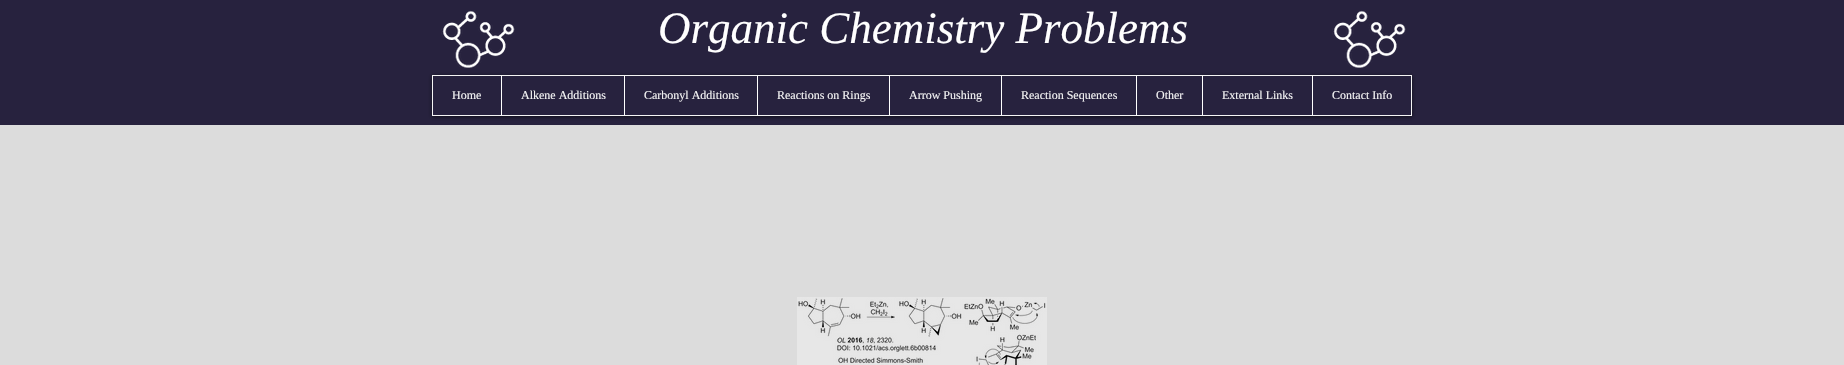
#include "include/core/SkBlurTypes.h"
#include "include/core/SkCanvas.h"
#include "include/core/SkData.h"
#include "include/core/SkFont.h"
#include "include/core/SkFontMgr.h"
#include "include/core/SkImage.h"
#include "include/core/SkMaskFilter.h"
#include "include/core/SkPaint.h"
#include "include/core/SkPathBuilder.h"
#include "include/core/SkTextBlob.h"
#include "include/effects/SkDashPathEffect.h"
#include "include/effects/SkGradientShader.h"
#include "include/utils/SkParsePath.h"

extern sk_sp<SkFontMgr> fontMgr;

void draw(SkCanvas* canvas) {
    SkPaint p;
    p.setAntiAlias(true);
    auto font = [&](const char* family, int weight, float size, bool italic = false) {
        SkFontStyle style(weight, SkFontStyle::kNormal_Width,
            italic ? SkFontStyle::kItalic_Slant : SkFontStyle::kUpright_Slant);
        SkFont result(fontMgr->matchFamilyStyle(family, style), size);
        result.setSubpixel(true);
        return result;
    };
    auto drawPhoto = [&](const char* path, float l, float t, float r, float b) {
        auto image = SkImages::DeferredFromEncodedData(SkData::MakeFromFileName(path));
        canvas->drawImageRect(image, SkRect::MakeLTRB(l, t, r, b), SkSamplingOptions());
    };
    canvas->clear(0xFFDCDCDC);
    p.setColor(0xFF27223E);
    canvas->drawRect(SkRect::MakeLTRB(0, 0, 1844, 125), p);
    drawPhoto("media/1.png", 441, 10, 515, 68);
    auto font1 = font("Liberation Serif", 400, 45, true);
    p.setColor(0xFFFFFFFF);
    canvas->drawString("Organic Chemistry Problems", 658, 43, font1, p);
    drawPhoto("media/1.png", 1332, 10, 1406, 68);
    canvas->save();
    canvas->clipPath(SkPathBuilder(SkPathFillType::kEvenOdd).moveTo(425, 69).lineTo(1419, 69).lineTo(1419, 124).lineTo(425, 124).close().moveTo(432, 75).lineTo(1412, 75).lineTo(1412, 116).lineTo(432, 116).close().detach(), true);
    p.setColor(0x99000000);
    p.setMaskFilter(SkMaskFilter::MakeBlur(kNormal_SkBlurStyle, 2));
    canvas->drawRect(SkRect::MakeLTRB(432, 76, 1412, 117), p);
    p.setMaskFilter(nullptr);
    canvas->restore();
    p.setStyle(SkPaint::kStroke_Style);
    p.setStrokeWidth(1);
    p.setColor(0xFFF5F5F5);
    canvas->drawRect(SkRect::MakeLTRB(432.5f, 75.5f, 1411.5f, 115.5f), p);
    auto font2 = font("Liberation Serif", 400, 12);
    p.setStyle(SkPaint::kFill_Style);
    canvas->drawString("Home", 452, 99, font2, p);
    p.setColor(0xFFFFFFFF);
    canvas->drawRect(SkRect::MakeLTRB(501, 76, 502, 115), p);
    p.setColor(0xFFF5F5F5);
    canvas->drawString("Alkene Additions", 521, 99, font2, p);
    p.setColor(0xFFFFFFFF);
    canvas->drawRect(SkRect::MakeLTRB(624, 76, 625, 115), p);
    p.setColor(0xFFF5F5F5);
    canvas->drawString("Carbonyl Additions", 644, 99, font2, p);
    p.setColor(0xFFFFFFFF);
    canvas->drawRect(SkRect::MakeLTRB(757, 76, 758, 115), p);
    p.setColor(0xFFF5F5F5);
    canvas->drawString("Reactions on Rings", 777, 99, font2, p);
    p.setColor(0xFFFFFFFF);
    canvas->drawRect(SkRect::MakeLTRB(889, 76, 890, 115), p);
    p.setColor(0xFFF5F5F5);
    canvas->drawString("Arrow Pushing", 909, 99, font2, p);
    p.setColor(0xFFFFFFFF);
    canvas->drawRect(SkRect::MakeLTRB(1001, 76, 1002, 115), p);
    p.setColor(0xFFF5F5F5);
    canvas->drawString("Reaction Sequences", 1021, 99, font2, p);
    p.setColor(0xFFFFFFFF);
    canvas->drawRect(SkRect::MakeLTRB(1136, 76, 1137, 115), p);
    p.setColor(0xFFF5F5F5);
    canvas->drawString("Other", 1156, 99, font2, p);
    p.setColor(0xFFFFFFFF);
    canvas->drawRect(SkRect::MakeLTRB(1202, 76, 1203, 115), p);
    p.setColor(0xFFF5F5F5);
    canvas->drawString("External Links", 1222, 99, font2, p);
    p.setColor(0xFFFFFFFF);
    canvas->drawRect(SkRect::MakeLTRB(1312, 76, 1313, 115), p);
    p.setColor(0xFFF5F5F5);
    canvas->drawString("Contact Info", 1332, 99, font2, p);
    drawPhoto("media/2.png", 797, 297, 1047, 365);
}
